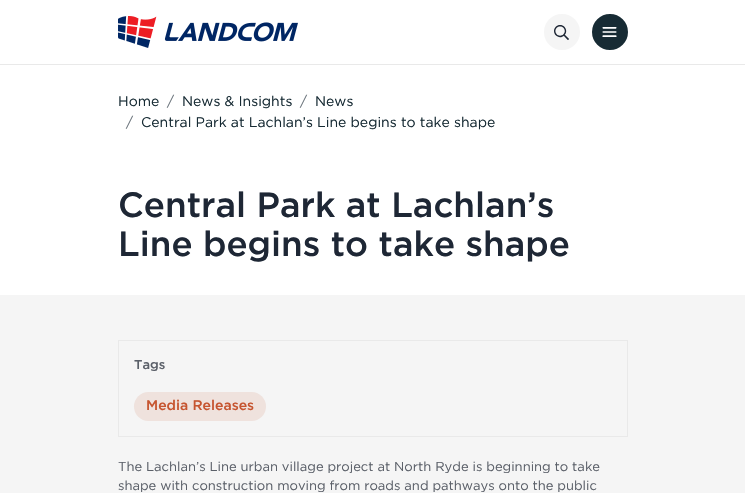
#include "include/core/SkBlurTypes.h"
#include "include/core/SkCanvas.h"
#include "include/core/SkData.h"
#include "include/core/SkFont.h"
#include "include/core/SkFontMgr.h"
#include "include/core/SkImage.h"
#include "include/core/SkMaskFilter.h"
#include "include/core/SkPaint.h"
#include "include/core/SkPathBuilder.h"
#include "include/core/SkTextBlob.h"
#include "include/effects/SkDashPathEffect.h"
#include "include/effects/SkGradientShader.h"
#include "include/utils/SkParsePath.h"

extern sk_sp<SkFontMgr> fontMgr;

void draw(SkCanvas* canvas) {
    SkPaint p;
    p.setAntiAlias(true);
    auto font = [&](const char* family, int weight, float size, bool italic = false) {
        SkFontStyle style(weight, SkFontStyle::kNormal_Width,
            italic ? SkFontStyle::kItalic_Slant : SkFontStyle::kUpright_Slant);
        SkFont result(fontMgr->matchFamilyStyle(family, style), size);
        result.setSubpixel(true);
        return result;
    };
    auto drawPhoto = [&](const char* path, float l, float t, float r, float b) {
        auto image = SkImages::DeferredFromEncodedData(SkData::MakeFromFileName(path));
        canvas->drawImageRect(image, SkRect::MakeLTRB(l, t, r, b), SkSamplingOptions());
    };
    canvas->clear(0xFFFFFFFF);
    p.setColor(0xFFE9E9E9);
    canvas->drawRect(SkRect::MakeLTRB(0, 64, 745, 65), p);
    drawPhoto("media/1.png", 118, 16, 298, 48);
    p.setColor(0xFFF5F5F5);
    canvas->drawCircle(562, 32, 18, p);
    drawPhoto("media/2.png", 554, 25, 569, 40);
    p.setColor(0xFF172B34);
    canvas->drawCircle(610, 32, 17, p);
    p.setStyle(SkPaint::kStroke_Style);
    p.setStrokeWidth(2);
    canvas->drawCircle(610, 32, 17, p);
    drawPhoto("media/3.png", 602, 27, 617, 37);
    auto font1 = font("Gotham", 400, 14);
    p.setStyle(SkPaint::kFill_Style);
    canvas->drawString("Home", 118, 106, font1, p);
    p.setColor(0xFF6C757D);
    canvas->drawString("/", 167, 106, font1, p);
    p.setColor(0xFF172B34);
    canvas->drawString("News & Insights", 182, 106, font1, p);
    p.setColor(0xFF6C757D);
    canvas->drawString("/", 300, 106, font1, p);
    p.setColor(0xFF172B34);
    canvas->drawString("News", 315, 106, font1, p);
    p.setColor(0xFF6C757D);
    canvas->drawString("/", 126, 127, font1, p);
    p.setColor(0xFF172B34);
    canvas->drawString("Central Park at Lachlan’s Line begins to take shape", 141, 127, font1, p);
    p.setColor(0xFFF5F5F5);
    canvas->drawRect(SkRect::MakeLTRB(0, 295, 745, 493), p);
    auto font2 = font("Gotham", 500, 35);
    p.setColor(0xFF1E2735);
    canvas->drawString("Central Park at Lachlan’s", 118, 217, font2, p);
    canvas->drawString("Line begins to take shape", 118, 256, font2, p);
    p.setStyle(SkPaint::kStroke_Style);
    p.setStrokeWidth(1);
    p.setColor(0xFFE9E9E9);
    canvas->drawRect(SkRect::MakeLTRB(118.5f, 340.5f, 627.5f, 436.5f), p);
    auto font3 = font("Gotham", 500, 13);
    p.setStyle(SkPaint::kFill_Style);
    p.setColor(0xFF5B6069);
    canvas->drawString("Tags", 134, 369, font3, p);
    p.setColor(0xFFEFE2DD);
    canvas->drawRoundRect(SkRect::MakeLTRB(134, 392, 266, 421), 14.5f, 14.5f, p);
    auto font4 = font("Gotham", 500, 14);
    p.setColor(0xFFC65530);
    canvas->drawString("Media Releases", 146, 410, font4, p);
    auto font5 = font("Gotham", 400, 13);
    p.setColor(0xFF5B6069);
    canvas->drawString("The Lachlan’s Line urban village project at North Ryde is beginning to take", 118, 471, font5, p);
    canvas->drawString("shape with construction moving from roads and pathways onto the public", 118, 490, font5, p);
}
